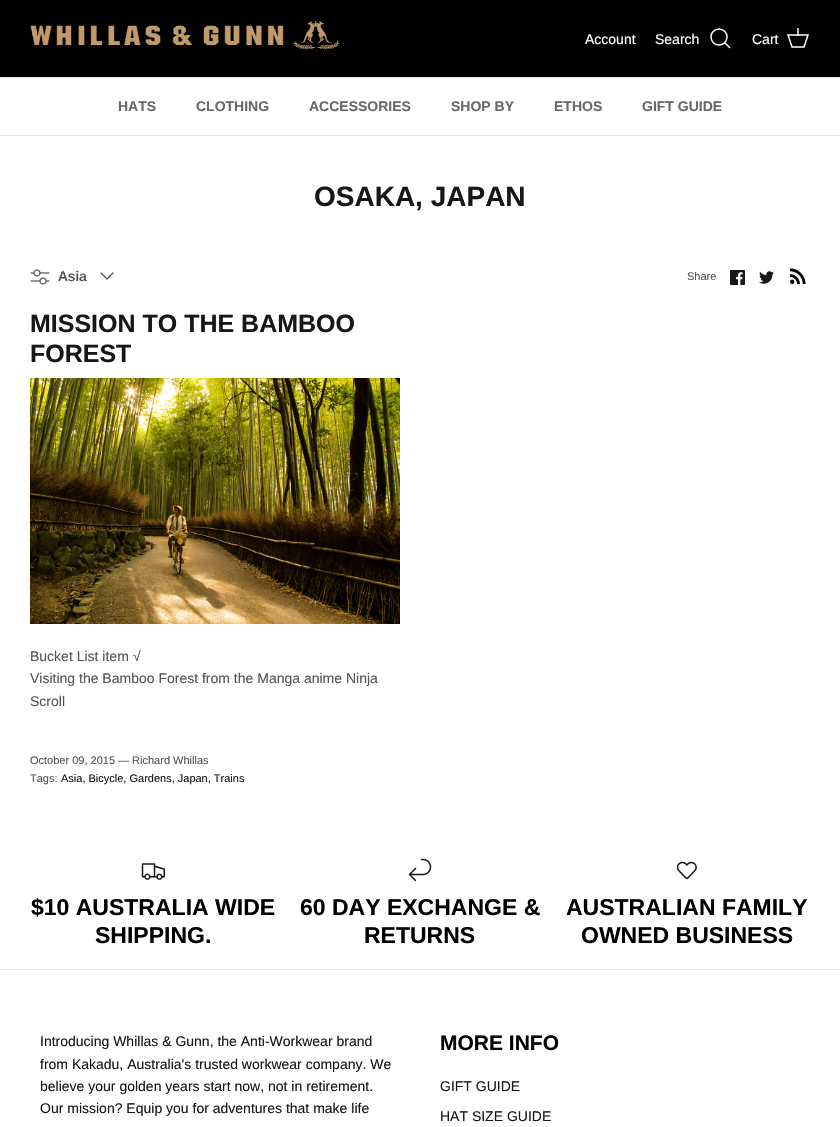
#include "include/core/SkBlurTypes.h"
#include "include/core/SkCanvas.h"
#include "include/core/SkData.h"
#include "include/core/SkFont.h"
#include "include/core/SkFontMgr.h"
#include "include/core/SkImage.h"
#include "include/core/SkMaskFilter.h"
#include "include/core/SkPaint.h"
#include "include/core/SkPathBuilder.h"
#include "include/core/SkTextBlob.h"
#include "include/effects/SkDashPathEffect.h"
#include "include/effects/SkGradientShader.h"
#include "include/utils/SkParsePath.h"

extern sk_sp<SkFontMgr> fontMgr;

void draw(SkCanvas* canvas) {
    SkPaint p;
    p.setAntiAlias(true);
    auto font = [&](const char* family, int weight, float size, bool italic = false) {
        SkFontStyle style(weight, SkFontStyle::kNormal_Width,
            italic ? SkFontStyle::kItalic_Slant : SkFontStyle::kUpright_Slant);
        SkFont result(fontMgr->matchFamilyStyle(family, style), size);
        result.setSubpixel(true);
        return result;
    };
    auto drawPhoto = [&](const char* path, float l, float t, float r, float b) {
        auto image = SkImages::DeferredFromEncodedData(SkData::MakeFromFileName(path));
        canvas->drawImageRect(image, SkRect::MakeLTRB(l, t, r, b), SkSamplingOptions());
    };
    canvas->clear(0xFFFFFFFF);
    p.setColor(0xFF000000);
    canvas->drawRect(SkRect::MakeLTRB(0, 0, 840, 77), p);
    p.setColor(0xFFE2E2E2);
    canvas->drawRect(SkRect::MakeLTRB(0, 77, 840, 78), p);
    drawPhoto("media/1.png", 30, 20, 340, 50);
    auto font1 = font("Arimo", 400, 14);
    p.setColor(0xFFFFFFFF);
    canvas->drawString("Account", 585, 44, font1, p);
    canvas->drawString("Search", 655, 44, font1, p);
    p.setStyle(SkPaint::kStroke_Style);
    p.setStrokeWidth(1.5f);
    canvas->drawCircle(719, 37, 8, p);
    p.setStrokeCap(SkPaint::kSquare_Cap);
    canvas->drawPath(SkPathBuilder().moveTo(725, 43).lineTo(729.5f, 47.5f).detach(), p);
    p.setStyle(SkPaint::kFill_Style);
    canvas->drawString("Cart", 752, 44, font1, p);
    p.setStyle(SkPaint::kStroke_Style);
    p.setStrokeCap(SkPaint::kButt_Cap);
    canvas->drawPath(SkPathBuilder().moveTo(788, 35).lineTo(808, 35).lineTo(804, 47).lineTo(792, 47).close().detach(), p);
    p.setStyle(SkPaint::kFill_Style);
    p.setColor(0xBFFFFFFF);
    canvas->drawRect(SkRect::MakeLTRB(797, 28, 799, 36), p);
    p.setColor(0xFFE2E2E2);
    canvas->drawRect(SkRect::MakeLTRB(0, 135, 840, 136), p);
    auto font2 = font("Arimo", 700, 14);
    p.setColor(0xFF676869);
    {
        const struct { const char* s; float x, y; } items[] = {
            {"HATS", 118, 111},
            {"CLOTHING", 196, 111},
            {"ACCESSORIES", 309, 111},
            {"SHOP BY", 451, 111},
            {"ETHOS", 554, 111},
            {"GIFT GUIDE", 642, 111},
        };
        for (auto [s, x, y] : items) {
            canvas->drawString(s, x, y, font2, p);
        }
    }
    auto font3 = font("Arimo", 700, 28);
    p.setColor(0xFF171717);
    canvas->drawString("OSAKA, JAPAN", 314, 206, font3, p);
    drawPhoto("media/2.png", 30, 269, 50, 285);
    auto font4 = font("Arimo", 600, 14);
    p.setColor(0xFF535455);
    canvas->drawString("Asia", 58, 281, font4, p);
    p.setStyle(SkPaint::kStroke_Style);
    p.setStrokeWidth(1.3f);
    p.setStrokeCap(SkPaint::kRound_Cap);
    p.setStrokeJoin(SkPaint::kRound_Join);
    canvas->drawPath(SkPathBuilder().moveTo(101, 273).lineTo(107, 279).lineTo(113, 273).detach(), p);
    auto font5 = font("Arimo", 400, 11);
    p.setStyle(SkPaint::kFill_Style);
    canvas->drawString("Share", 687, 280, font5, p);
    drawPhoto("media/3.png", 730, 270, 745, 285);
    drawPhoto("media/4.png", 759, 271, 774, 284);
    drawPhoto("media/5.png", 790, 268, 806, 284);
    auto font6 = font("Arimo", 700, 25);
    p.setColor(0xFF171717);
    canvas->drawString("MISSION TO THE BAMBOO", 30, 332, font6, p);
    canvas->drawString("FOREST", 30, 362, font6, p);
    drawPhoto("media/6.png", 30, 378, 400, 624);
    p.setColor(0xFF535455);
    canvas->drawString("Bucket List item", 30, 661, font1, p);
    auto font7 = font("Liberation Sans", 400, 14);
    canvas->drawString("√", 133, 661, font7, p);
    canvas->drawString("Visiting the Bamboo Forest from the Manga anime Ninja", 30, 683, font1, p);
    canvas->drawString("Scroll", 30, 706, font1, p);
    canvas->drawString("October 09, 2015 — Richard Whillas", 30, 764, font5, p);
    canvas->drawString("Tags:", 30, 782, font5, p);
    p.setColor(0xFF171717);
    canvas->drawString("Asia, Bicycle, Gardens, Japan, Trains", 61, 782, font5, p);
    drawPhoto("media/7.png", 141, 863, 165, 880);
    auto font8 = font("Arimo", 700, 23);
    p.setColor(0xFF000000);
    canvas->drawString("$10 AUSTRALIA WIDE", 31, 915, font8, p);
    canvas->drawString("SHIPPING.", 95, 943, font8, p);
    drawPhoto("media/8.png", 408, 858, 432, 882);
    canvas->drawString("60 DAY EXCHANGE &", 300, 915, font8, p);
    canvas->drawString("RETURNS", 364, 943, font8, p);
    drawPhoto("media/9.png", 676, 861, 697, 880);
    canvas->drawString("AUSTRALIAN FAMILY", 566, 915, font8, p);
    canvas->drawString("OWNED BUSINESS", 581, 943, font8, p);
    p.setColor(0xFFE4E4E4);
    canvas->drawRect(SkRect::MakeLTRB(0, 969, 840, 970), p);
    p.setColor(0xFF171717);
    {
        const struct { const char* s; float x, y; } items[] = {
            {"Introducing Whillas & Gunn, the Anti-Workwear brand", 40, 1046},
            {"from Kakadu, Australia's trusted workwear company. We", 40, 1069},
            {"believe your golden years start now, not in retirement.", 40, 1091},
            {"Our mission? Equip you for adventures that make life", 40, 1113},
        };
        for (auto [s, x, y] : items) {
            canvas->drawString(s, x, y, font1, p);
        }
    }
    auto font9 = font("Arimo", 700, 21);
    p.setColor(0xFF000000);
    canvas->drawString("MORE INFO", 440, 1050, font9, p);
    p.setColor(0xFF171717);
    canvas->drawString("GIFT GUIDE", 440, 1091, font1, p);
    canvas->drawString("HAT SIZE GUIDE", 440, 1121, font1, p);
}
